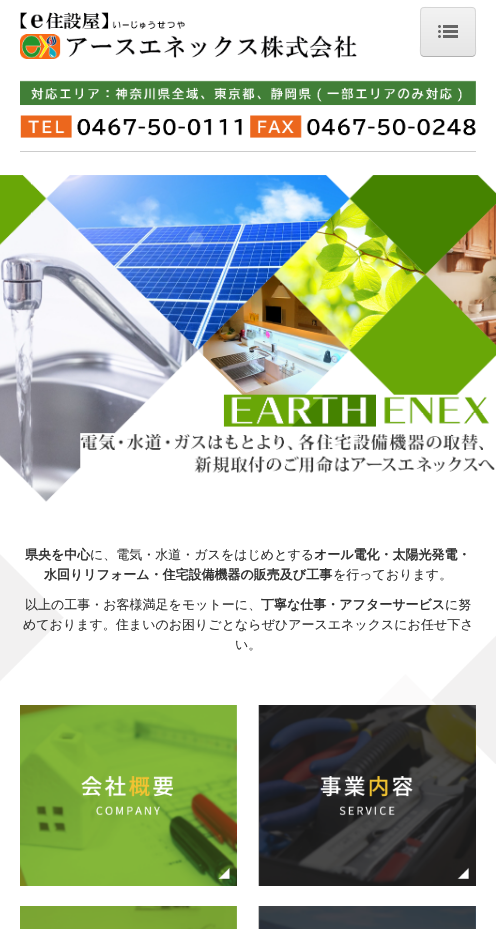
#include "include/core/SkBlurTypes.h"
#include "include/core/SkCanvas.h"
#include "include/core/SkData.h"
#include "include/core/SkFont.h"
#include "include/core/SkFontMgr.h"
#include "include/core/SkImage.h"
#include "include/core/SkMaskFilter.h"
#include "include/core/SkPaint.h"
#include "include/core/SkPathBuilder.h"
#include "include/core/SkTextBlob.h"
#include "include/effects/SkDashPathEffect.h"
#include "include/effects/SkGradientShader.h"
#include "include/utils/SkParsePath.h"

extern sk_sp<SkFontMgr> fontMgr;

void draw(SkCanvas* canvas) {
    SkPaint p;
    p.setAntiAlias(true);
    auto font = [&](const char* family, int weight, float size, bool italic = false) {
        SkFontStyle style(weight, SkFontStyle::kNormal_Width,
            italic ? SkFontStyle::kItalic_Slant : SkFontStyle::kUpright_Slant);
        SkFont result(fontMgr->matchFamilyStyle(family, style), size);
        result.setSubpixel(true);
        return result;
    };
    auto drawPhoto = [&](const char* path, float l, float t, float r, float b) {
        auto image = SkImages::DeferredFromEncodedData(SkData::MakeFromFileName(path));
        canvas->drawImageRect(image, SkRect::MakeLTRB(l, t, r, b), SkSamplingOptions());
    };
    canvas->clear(0xFFFFFFFF);
    p.setColor(0xFFCCCCCC);
    canvas->drawRect(SkRect::MakeLTRB(20, 151, 476, 152), p);
    p.setColor(0xFFEDEDED);
    canvas->drawRoundRect(SkRect::MakeLTRB(420, 7, 476, 57), 4, 4, p);
    canvas->save();
    canvas->clipPath(SkPathBuilder().moveTo(424, 7).lineTo(472, 7).cubicTo(474, 7, 476, 9, 476, 11).lineTo(476, 53).cubicTo(476, 55, 474, 57, 472, 57).lineTo(424, 57).cubicTo(422, 57, 420, 55, 420, 53).lineTo(420, 11).cubicTo(420, 9, 422, 7, 424, 7).close().detach(), true);
    {
        const SkColor colors[] = {0xFFF2F2F2, 0xFFE5E5E5};
        const float stops[] = {0, 1};
        const SkPoint ends[] = {{448, 8}, {448, 56}};
        p.setShader(SkGradientShader::MakeLinear(ends, colors, stops, 2, SkTileMode::kClamp));
        p.setAlpha(255);
    }
    canvas->drawRect(SkRect::MakeLTRB(420, 8, 476, 56), p);
    canvas->restore();
    p.setStyle(SkPaint::kStroke_Style);
    p.setStrokeWidth(1);
    p.setShader(nullptr);
    p.setColor(0x40000000);
    canvas->drawPath(SkPathBuilder().moveTo(474.5f, 55.5f).lineTo(472.5f, 56.5f).lineTo(423.5f, 56.5f).lineTo(421.5f, 55.5f).detach(), p);
    p.setColor(0x1A000000);
    canvas->drawPath(SkPathBuilder().moveTo(421.5f, 55.5f).cubicTo(419.5f, 53.5f, 420.5f, 47.5f, 420.5f, 46).lineTo(420.5f, 18).cubicTo(420.5f, 6, 420, 7.5f, 432, 7.5f).lineTo(464, 7.5f).cubicTo(476, 7.5f, 475.5f, 6, 475.5f, 18).lineTo(475.5f, 46).cubicTo(475.5f, 47.5f, 476.5f, 53.5f, 474.5f, 55.5f).detach(), p);
    drawPhoto("media/1.png", 438, 25, 458, 38);
    drawPhoto("media/2.png", 20, 12, 357, 59);
    drawPhoto("media/3.png", 20, 80, 476, 138);
    drawPhoto("media/4.png", 0, 175, 496, 502);
    drawPhoto("media/9.png", 0, 554, 496, 764);
    auto font1 = font("WenQuanYi Zen Hei", 700, 13);
    p.setStyle(SkPaint::kFill_Style);
    p.setColor(0xFF333333);
    canvas->drawString("県央を中心", 25, 559, font1, p);
    auto font2 = font("WenQuanYi Zen Hei", 500, 13);
    canvas->drawString("に、電気・水道・ガスをはじめとする", 90, 559, font2, p);
    canvas->drawString("オール電化・太陽光発電・", 314, 559, font1, p);
    canvas->drawString("水回りリフォーム・住宅設備機器の販売及び工事", 44, 579, font1, p);
    canvas->drawString("を行っております。", 333, 579, font2, p);
    canvas->drawString("以上の工事・お客様満足をモットーに、", 25, 609, font2, p);
    canvas->drawString("丁寧な仕事・アフターサービス", 261, 609, font1, p);
    {
        const struct { const char* s; float x, y; } items[] = {
            {"に努", 445, 609},
            {"めております。住まいのお困りごとならぜひアースエネックスにお任せ下さ", 23, 629},
            {"い。", 235, 649},
        };
        for (auto [s, x, y] : items) {
            canvas->drawString(s, x, y, font2, p);
        }
    }
    drawPhoto("media/5.png", 20, 705, 237, 886);
    drawPhoto("media/6.png", 258, 705, 476, 886);
    drawPhoto("media/7.png", 20, 906, 237, 929);
    drawPhoto("media/8.png", 258, 906, 476, 929);
}
